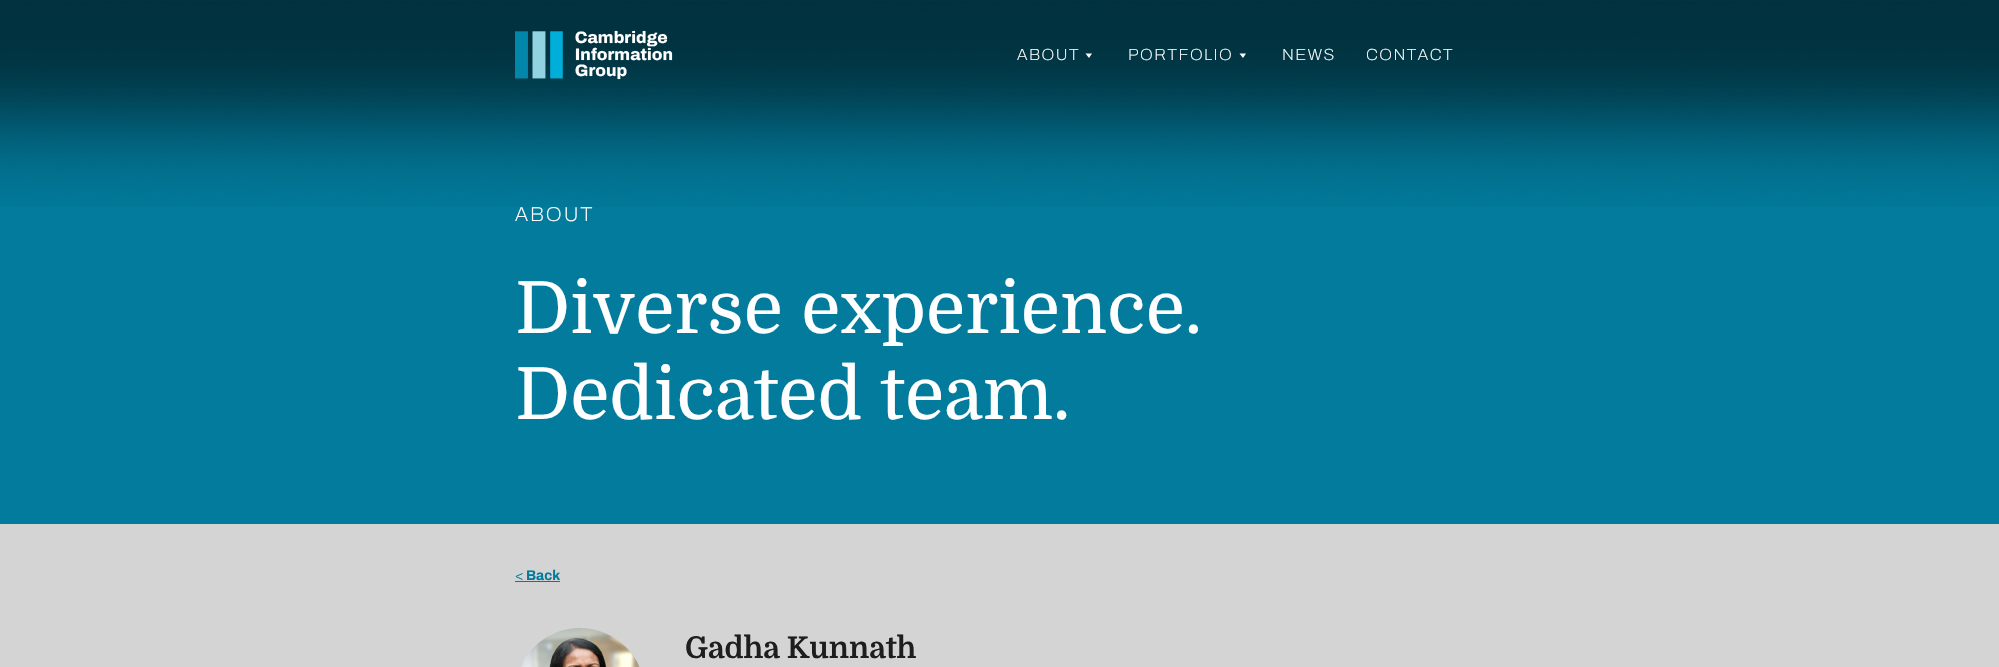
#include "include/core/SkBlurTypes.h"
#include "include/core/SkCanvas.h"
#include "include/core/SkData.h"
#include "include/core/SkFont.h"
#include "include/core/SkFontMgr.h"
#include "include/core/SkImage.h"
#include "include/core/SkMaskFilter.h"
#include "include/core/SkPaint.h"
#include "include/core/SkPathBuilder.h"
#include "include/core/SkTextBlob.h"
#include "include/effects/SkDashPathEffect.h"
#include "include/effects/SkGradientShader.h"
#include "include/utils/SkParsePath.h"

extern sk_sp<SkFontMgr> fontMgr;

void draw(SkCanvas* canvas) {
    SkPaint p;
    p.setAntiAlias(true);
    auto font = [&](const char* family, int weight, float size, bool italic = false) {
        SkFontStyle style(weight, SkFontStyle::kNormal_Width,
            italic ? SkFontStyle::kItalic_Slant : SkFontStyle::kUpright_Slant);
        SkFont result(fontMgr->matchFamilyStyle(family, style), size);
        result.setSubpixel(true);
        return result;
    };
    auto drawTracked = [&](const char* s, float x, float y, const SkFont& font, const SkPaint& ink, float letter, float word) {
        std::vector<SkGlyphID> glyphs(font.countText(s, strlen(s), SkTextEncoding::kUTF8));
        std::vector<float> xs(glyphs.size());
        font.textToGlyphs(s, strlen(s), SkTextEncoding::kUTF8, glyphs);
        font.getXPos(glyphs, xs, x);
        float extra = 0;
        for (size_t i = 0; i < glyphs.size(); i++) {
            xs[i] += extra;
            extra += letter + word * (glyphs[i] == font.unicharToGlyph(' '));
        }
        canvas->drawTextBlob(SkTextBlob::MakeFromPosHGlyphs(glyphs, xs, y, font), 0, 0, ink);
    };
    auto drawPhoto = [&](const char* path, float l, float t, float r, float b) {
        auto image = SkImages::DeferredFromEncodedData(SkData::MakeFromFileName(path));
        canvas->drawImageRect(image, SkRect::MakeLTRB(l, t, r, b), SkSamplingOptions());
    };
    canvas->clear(0xFF027B9C);
    drawPhoto("media/1.png", 0, 0, 1999, 207);
    drawPhoto("media/2.png", 515, 30, 673, 80);
    auto font1 = font("Archivo", 100, 16);
    p.setColor(0xFFFFFFFF);
    drawTracked("ABOUT", 1017, 60, font1, p, 1.5f, 0);
    canvas->drawPath(SkPathBuilder().moveTo(1092, 53.5f).lineTo(1089, 58).lineTo(1085.5f, 53.5f).close().detach(), p);
    drawTracked("PORTFOLIO", 1128, 60, font1, p, 1.5f, 0);
    canvas->drawPath(SkPathBuilder().moveTo(1246, 53.5f).lineTo(1243, 58).lineTo(1239.5f, 53.5f).close().detach(), p);
    drawTracked("NEWS", 1282, 60, font1, p, 1.5f, 0);
    drawTracked("CONTACT", 1366, 60, font1, p, 1.5f, 0);
    auto font2 = font("Archivo", 100, 20);
    drawTracked("ABOUT", 515, 221, font2, p, 2, 0);
    auto font3 = font("Domine", 400, 72);
    canvas->drawString("Diverse experience.", 515, 333, font3, p);
    canvas->drawString("Dedicated team.", 515, 419, font3, p);
    p.setColor(0xFFD4D4D4);
    canvas->drawRect(SkRect::MakeLTRB(0, 524, 1999, 667), p);
    auto font4 = font("Archivo", 300, 14);
    p.setColor(0xFF027B9C);
    canvas->drawString("<", 515, 580, font4, p);
    canvas->drawRect(SkRect::MakeLTRB(515, 581, 560, 582), p);
    auto font5 = font("Archivo", 700, 14);
    canvas->drawString("Back", 526, 580, font5, p);
    drawPhoto("media/3.png", 521, 628, 640, 667);
    auto font6 = font("Domine", 700, 30);
    p.setColor(0xFF1E1E1E);
    canvas->drawString("Gadha Kunnath", 685, 658, font6, p);
}
